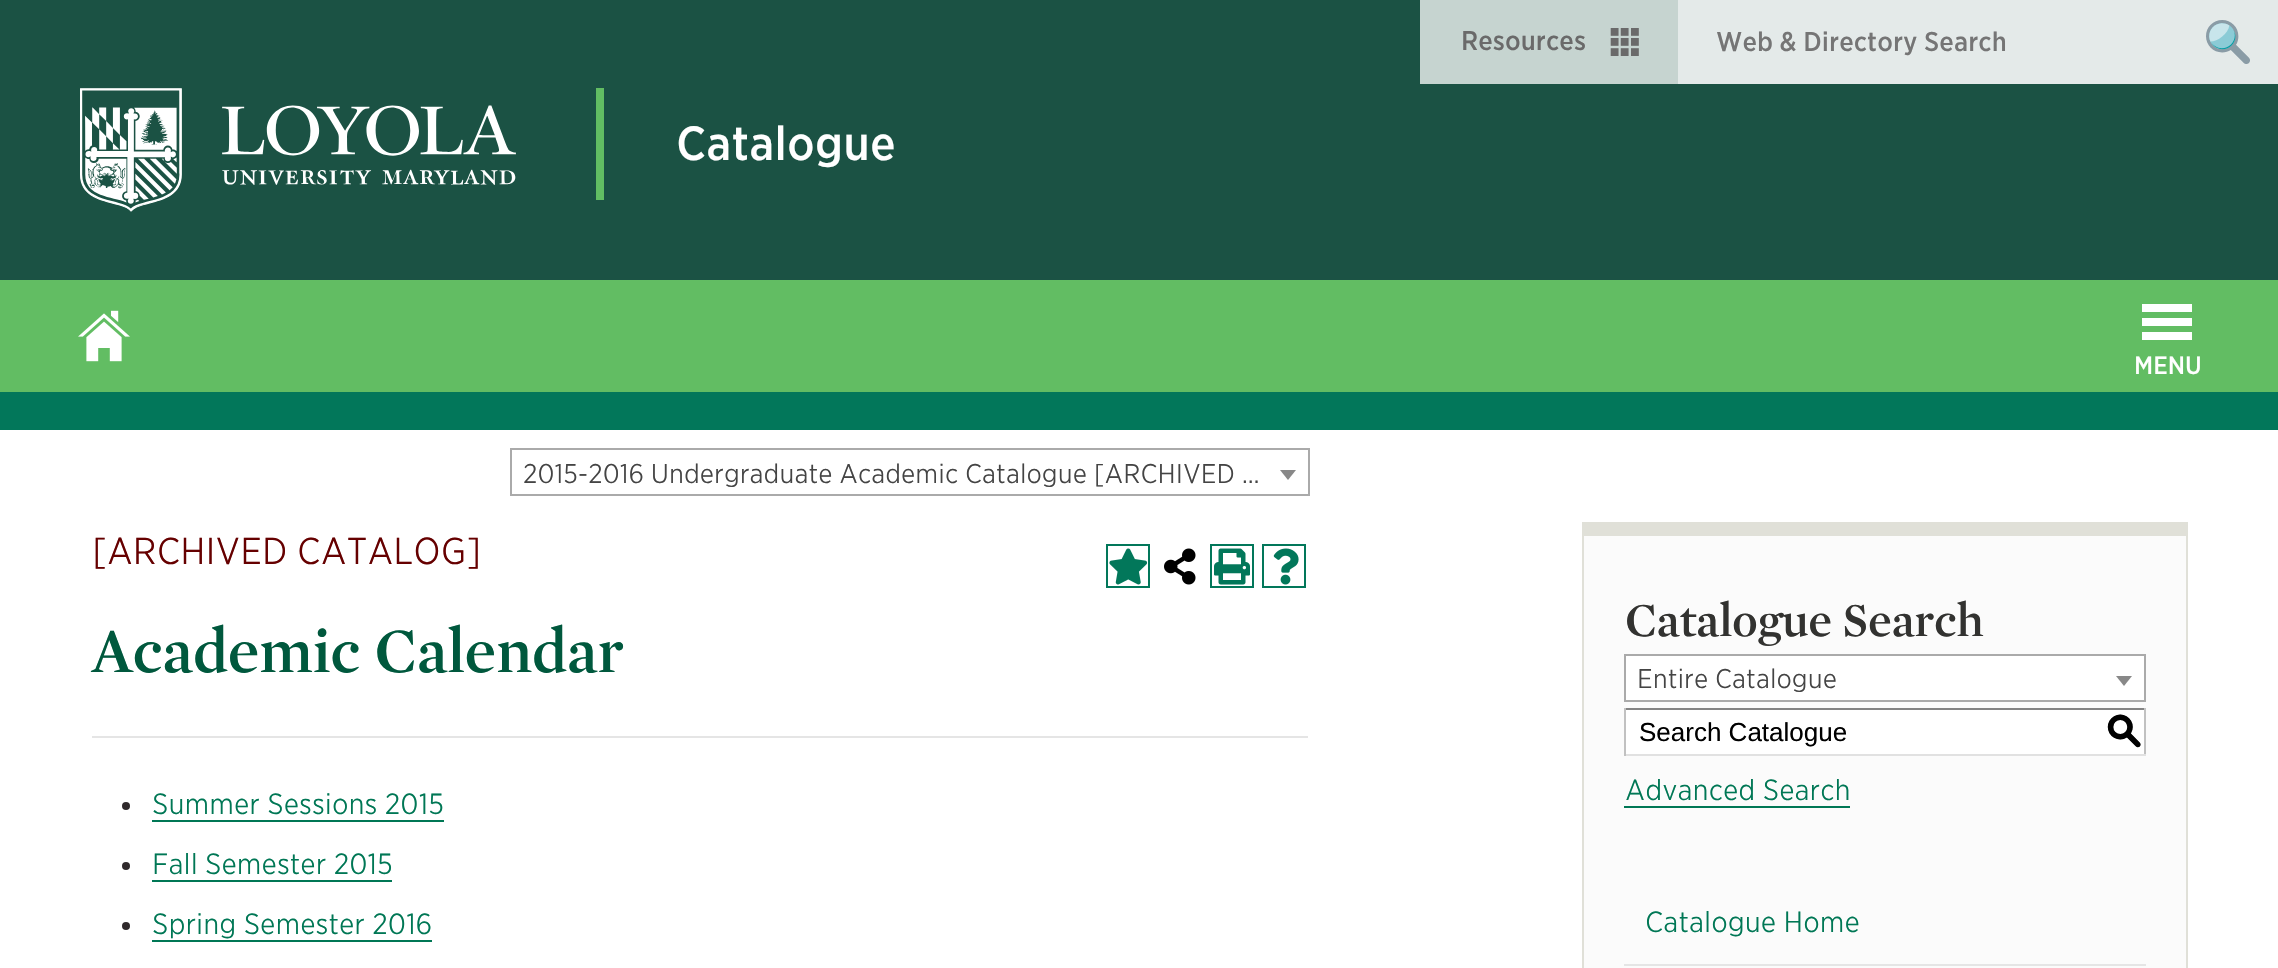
#include "include/core/SkBlurTypes.h"
#include "include/core/SkCanvas.h"
#include "include/core/SkData.h"
#include "include/core/SkFont.h"
#include "include/core/SkFontMgr.h"
#include "include/core/SkImage.h"
#include "include/core/SkMaskFilter.h"
#include "include/core/SkPaint.h"
#include "include/core/SkPathBuilder.h"
#include "include/core/SkTextBlob.h"
#include "include/effects/SkDashPathEffect.h"
#include "include/effects/SkGradientShader.h"
#include "include/utils/SkParsePath.h"

extern sk_sp<SkFontMgr> fontMgr;

void draw(SkCanvas* canvas) {
    SkPaint p;
    p.setAntiAlias(true);
    auto font = [&](const char* family, int weight, float size, bool italic = false) {
        SkFontStyle style(weight, SkFontStyle::kNormal_Width,
            italic ? SkFontStyle::kItalic_Slant : SkFontStyle::kUpright_Slant);
        SkFont result(fontMgr->matchFamilyStyle(family, style), size);
        result.setSubpixel(true);
        return result;
    };
    auto drawPhoto = [&](const char* path, float l, float t, float r, float b) {
        auto image = SkImages::DeferredFromEncodedData(SkData::MakeFromFileName(path));
        canvas->drawImageRect(image, SkRect::MakeLTRB(l, t, r, b), SkSamplingOptions());
    };
    canvas->clear(0xFF02775A);
    p.setColor(0xFF1B5244);
    canvas->drawRect(SkRect::MakeLTRB(0, 0, 2278, 280), p);
    p.setColor(0xFFC6D4D0);
    canvas->drawRect(SkRect::MakeLTRB(1420, 0, 1678, 84), p);
    drawPhoto("media/1.png", 1610, 28, 1639, 56);
    auto font1 = font("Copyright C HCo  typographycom", 300, 26);
    p.setColor(0xFF6A6A6A);
    canvas->drawString("Resources", 1461, 50, font1, p);
    p.setColor(0xFFE4EAE9);
    canvas->drawRect(SkRect::MakeLTRB(1678, 0, 2278, 84), p);
    p.setColor(0xFF757575);
    canvas->drawString("Web & Directory Search", 1716, 51, font1, p);
    drawPhoto("media/2.png", 2206, 20, 2250, 64);
    drawPhoto("media/3.png", 80, 88, 516, 212);
    p.setColor(0xFF62BD63);
    canvas->drawRect(SkRect::MakeLTRB(596, 88, 604, 200), p);
    auto font2 = font("Copyright C HCo  typographycom", 300, 46);
    p.setColor(0xFFFFFFFF);
    canvas->drawString("Catalogue", 676, 160, font2, p);
    p.setColor(0xFF62BD63);
    canvas->drawRect(SkRect::MakeLTRB(0, 280, 2278, 392), p);
    drawPhoto("media/4.png", 78, 310, 130, 362);
    {
        const struct { float l, t, r, b; SkColor color; } items[] = {
            {2142, 304, 2192, 312, 0xFFFFFFFF},
            {2142, 318, 2192, 326, 0xFFFFFFFF},
            {2142, 332, 2192, 340, 0xFFFFFFFF},
        };
        for (auto [l, t, r, b, color] : items) {
            p.setColor(color);
            canvas->drawRect(SkRect::MakeLTRB(l, t, r, b), p);
        }
    }
    auto font3 = font("Copyright C HCo  typographycom", 300, 24);
    canvas->drawString("MENU", 2134, 374, font3, p);
    canvas->drawRect(SkRect::MakeLTRB(0, 430, 2278, 968), p);
    p.setStyle(SkPaint::kStroke_Style);
    p.setStrokeWidth(2);
    p.setColor(0xFFAAAAAA);
    canvas->drawRect(SkRect::MakeLTRB(511, 449, 1309, 495), p);
    auto font4 = font("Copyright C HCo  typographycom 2", 300, 26);
    p.setStyle(SkPaint::kFill_Style);
    p.setColor(0xFF444444);
    canvas->drawString("2015-2016 Undergraduate Academic Catalogue [ARCHIVED …", 523, 483, font4, p);
    p.setColor(0xFF888888);
    canvas->drawPath(SkPathBuilder().moveTo(1280, 470).lineTo(1296, 470).lineTo(1288, 480).close().detach(), p);
    auto font5 = font("Copyright C HCo  typographycom 2", 300, 36);
    p.setColor(0xFF660000);
    canvas->drawString("[ARCHIVED CATALOG]", 92, 564, font5, p);
    p.setStyle(SkPaint::kStroke_Style);
    p.setColor(0xFF02775A);
    canvas->drawRect(SkRect::MakeLTRB(1107, 545, 1149, 587), p);
    drawPhoto("media/5.png", 1109, 548, 1148, 585);
    drawPhoto("media/6.png", 1164, 548, 1196, 585);
    canvas->drawRect(SkRect::MakeLTRB(1211, 545, 1253, 587), p);
    drawPhoto("media/7.png", 1214, 548, 1250, 585);
    canvas->drawRect(SkRect::MakeLTRB(1263, 545, 1305, 587), p);
    drawPhoto("media/8.png", 1273, 548, 1299, 585);
    auto font6 = font("Copyright C HCo  typographycom", 400, 64);
    p.setStyle(SkPaint::kFill_Style);
    p.setColor(0xFF00583D);
    canvas->drawString("Academic Calendar", 92, 672, font6, p);
    p.setColor(0xFFE5E5E5);
    canvas->drawRect(SkRect::MakeLTRB(92, 736, 1308, 738), p);
    p.setColor(0xFF2F292B);
    canvas->drawCircle(126, 806, 4, p);
    auto font7 = font("Copyright C HCo  typographycom 2", 300, 28);
    p.setColor(0xFF007755);
    canvas->drawString("Summer Sessions 2015", 152, 814, font7, p);
    canvas->drawRect(SkRect::MakeLTRB(152, 820, 444, 822), p);
    p.setColor(0xFF2F292B);
    canvas->drawCircle(126, 866, 4, p);
    p.setColor(0xFF007755);
    canvas->drawString("Fall Semester 2015", 152, 874, font7, p);
    canvas->drawRect(SkRect::MakeLTRB(152, 880, 392, 882), p);
    p.setColor(0xFF2F292B);
    canvas->drawCircle(126, 926, 4, p);
    p.setColor(0xFF007755);
    canvas->drawString("Spring Semester 2016", 152, 934, font7, p);
    {
        const struct { float l, t, r, b; SkColor color; } items[] = {
            {152, 940, 432, 942, 0xFF007755},
            {1584, 536, 2186, 968, 0xFFFBFBFB},
            {1584, 522, 2186, 536, 0xFFE0E0D8},
            {2186, 522, 2188, 968, 0xFFE0E0D8},
            {1582, 522, 1584, 968, 0xFFE0E0D8},
        };
        for (auto [l, t, r, b, color] : items) {
            p.setColor(color);
            canvas->drawRect(SkRect::MakeLTRB(l, t, r, b), p);
        }
    }
    auto font8 = font("Copyright C HCo  typographycom", 400, 48);
    p.setColor(0xFF323230);
    canvas->drawString("Catalogue Search", 1625, 636, font8, p);
    p.setColor(0xFFFFFFFF);
    canvas->drawRect(SkRect::MakeLTRB(1625, 655, 2145, 701), p);
    p.setStyle(SkPaint::kStroke_Style);
    p.setColor(0xFFAAAAAA);
    canvas->drawRect(SkRect::MakeLTRB(1625, 655, 2145, 701), p);
    p.setStyle(SkPaint::kFill_Style);
    p.setColor(0xFF444444);
    canvas->drawString("Entire Catalogue", 1637, 688, font4, p);
    p.setColor(0xFF888888);
    canvas->drawPath(SkPathBuilder().moveTo(2116, 676).lineTo(2132, 676).lineTo(2124, 686).close().detach(), p);
    {
        const struct { float l, t, r, b; SkColor color; } items[] = {
            {1626, 710, 2144, 754, 0xFFFFFFFF},
            {1624, 708, 2146, 710, 0xFF848484},
            {2144, 708, 2146, 756, 0xFFC1C1C1},
            {1624, 754, 2146, 756, 0xFFE1E1E1},
            {1624, 708, 1626, 756, 0xFFC1C1C1},
        };
        for (auto [l, t, r, b, color] : items) {
            p.setColor(color);
            canvas->drawRect(SkRect::MakeLTRB(l, t, r, b), p);
        }
    }
    auto font9 = font("Liberation Sans", 400, 26);
    p.setColor(0xFF000000);
    canvas->drawString("Search Catalogue", 1639, 741, font9, p);
    auto font10 = font("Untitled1", 500, 36);
    canvas->drawString("S", 2106, 742, font10, p);
    p.setColor(0xFF007755);
    canvas->drawString("Advanced Search", 1625, 800, font7, p);
    canvas->drawRect(SkRect::MakeLTRB(1624, 806, 1850, 808), p);
    p.setColor(0xFFE5E5E5);
    canvas->drawRect(SkRect::MakeLTRB(1624, 964, 2146, 966), p);
    p.setColor(0xFF007755);
    canvas->drawString("Catalogue Home", 1645, 932, font7, p);
}
